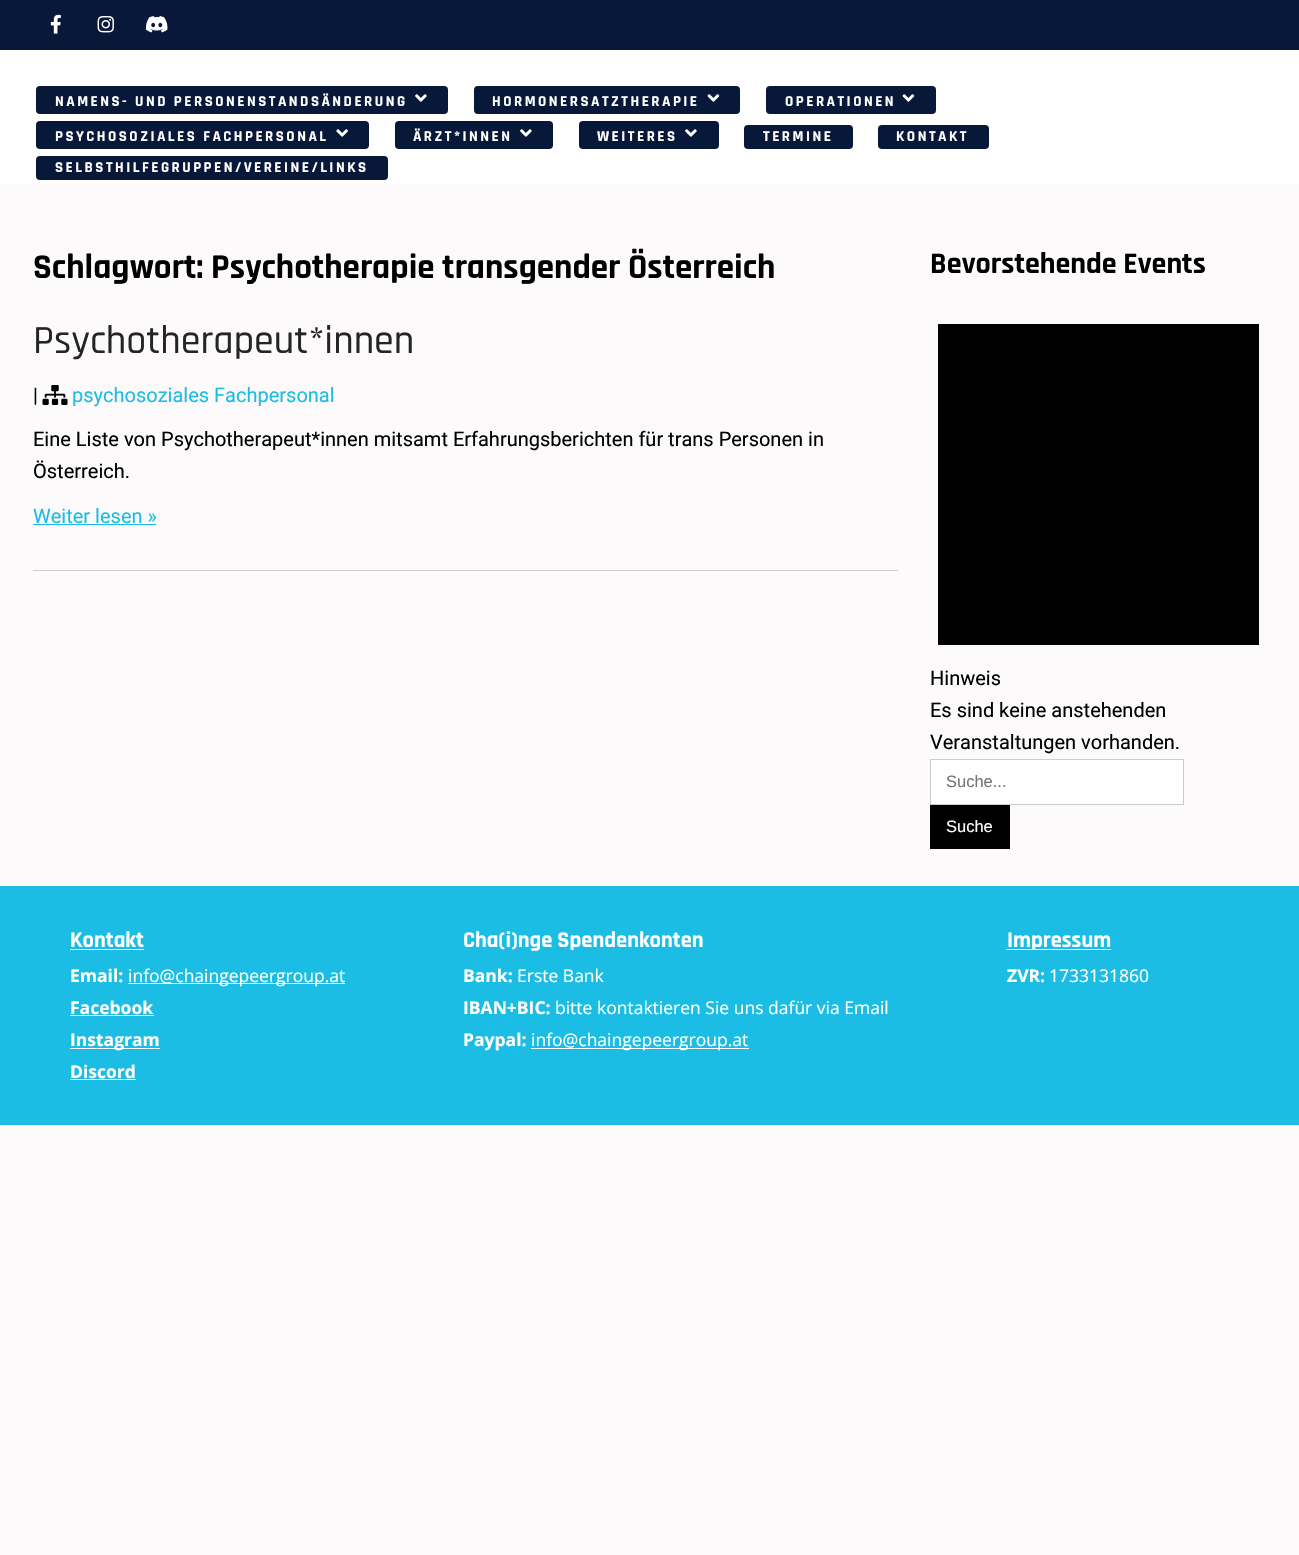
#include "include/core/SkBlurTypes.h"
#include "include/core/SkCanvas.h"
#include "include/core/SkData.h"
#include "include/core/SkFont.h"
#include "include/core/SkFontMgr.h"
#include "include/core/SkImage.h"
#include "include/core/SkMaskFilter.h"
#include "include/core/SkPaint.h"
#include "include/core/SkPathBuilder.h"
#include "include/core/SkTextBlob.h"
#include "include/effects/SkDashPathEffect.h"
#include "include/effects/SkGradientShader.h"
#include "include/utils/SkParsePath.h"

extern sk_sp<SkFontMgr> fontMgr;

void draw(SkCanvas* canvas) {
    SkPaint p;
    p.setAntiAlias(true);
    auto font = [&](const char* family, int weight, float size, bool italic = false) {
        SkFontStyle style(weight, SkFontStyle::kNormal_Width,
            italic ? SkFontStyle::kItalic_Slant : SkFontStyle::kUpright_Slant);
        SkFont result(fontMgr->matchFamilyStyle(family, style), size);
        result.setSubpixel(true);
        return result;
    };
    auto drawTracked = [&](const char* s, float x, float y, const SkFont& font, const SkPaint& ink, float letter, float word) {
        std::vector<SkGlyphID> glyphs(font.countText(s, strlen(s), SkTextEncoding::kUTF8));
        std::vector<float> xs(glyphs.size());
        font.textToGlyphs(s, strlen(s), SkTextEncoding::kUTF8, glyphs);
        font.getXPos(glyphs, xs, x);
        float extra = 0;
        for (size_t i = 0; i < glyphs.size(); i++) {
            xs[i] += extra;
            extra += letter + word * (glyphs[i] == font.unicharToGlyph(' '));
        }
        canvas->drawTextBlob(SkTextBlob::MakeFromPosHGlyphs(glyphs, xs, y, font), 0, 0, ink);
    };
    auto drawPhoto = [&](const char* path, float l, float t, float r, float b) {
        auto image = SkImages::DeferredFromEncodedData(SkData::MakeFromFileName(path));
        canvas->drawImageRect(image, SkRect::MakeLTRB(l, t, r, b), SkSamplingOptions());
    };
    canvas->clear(0xFFFCFAFA);
    p.setColor(0xFFFFFFFF);
    canvas->drawRect(SkRect::MakeLTRB(0, 50, 1299, 184), p);
    p.setColor(0xFF081839);
    canvas->drawRect(SkRect::MakeLTRB(0, 0, 1299, 50), p);
    drawPhoto("media/1.png", 50, 14, 61, 34);
    drawPhoto("media/2.png", 97, 16, 114, 33);
    drawPhoto("media/3.png", 146, 16, 168, 33);
    canvas->drawRoundRect(SkRect::MakeLTRB(36, 86, 448, 114), 4, 4, p);
    auto font1 = font("Rajdhani", 700, 15);
    p.setColor(0xFFFFFFFF);
    drawTracked("NAMENS- UND PERSONENSTANDSÄNDERUNG", 55, 106, font1, p, 2.5f, 0);
    drawPhoto("media/4.png", 415, 94, 427, 102);
    p.setColor(0xFF081839);
    canvas->drawRoundRect(SkRect::MakeLTRB(474, 86, 740, 114), 4, 4, p);
    p.setColor(0xFFFFFFFF);
    drawTracked("HORMONERSATZTHERAPIE", 492, 106, font1, p, 2.5f, 0);
    drawPhoto("media/5.png", 707, 94, 720, 102);
    p.setColor(0xFF081839);
    canvas->drawRoundRect(SkRect::MakeLTRB(766, 86, 936, 114), 4, 4, p);
    p.setColor(0xFFFFFFFF);
    drawTracked("OPERATIONEN", 785, 106, font1, p, 2.5f, 0);
    drawPhoto("media/5.png", 902, 94, 915, 102);
    p.setColor(0xFF081839);
    canvas->drawRoundRect(SkRect::MakeLTRB(36, 121, 369, 149), 4, 4, p);
    p.setColor(0xFFFFFFFF);
    drawTracked("PSYCHOSOZIALES FACHPERSONAL", 55, 141, font1, p, 2.5f, 0);
    drawPhoto("media/6.png", 336, 129, 348, 137);
    p.setColor(0xFF081839);
    canvas->drawRoundRect(SkRect::MakeLTRB(395, 121, 553, 149), 4, 4, p);
    p.setColor(0xFFFFFFFF);
    drawTracked("ÄRZT*INNEN", 413, 141, font1, p, 2.5f, 0);
    drawPhoto("media/4.png", 520, 129, 532, 137);
    p.setColor(0xFF081839);
    canvas->drawRoundRect(SkRect::MakeLTRB(579, 121, 719, 149), 4, 4, p);
    p.setColor(0xFFFFFFFF);
    drawTracked("WEITERES", 597, 141, font1, p, 2.5f, 0);
    drawPhoto("media/4.png", 685, 129, 697, 137);
    p.setColor(0xFF081839);
    canvas->drawRoundRect(SkRect::MakeLTRB(744, 125, 853, 149), 4, 4, p);
    p.setColor(0xFFFFFFFF);
    drawTracked("TERMINE", 763, 141, font1, p, 2.5f, 0);
    p.setColor(0xFF081839);
    canvas->drawRoundRect(SkRect::MakeLTRB(878, 125, 989, 149), 4, 4, p);
    p.setColor(0xFFFFFFFF);
    drawTracked("KONTAKT", 896, 141, font1, p, 2.5f, 0);
    p.setColor(0xFF081839);
    canvas->drawRoundRect(SkRect::MakeLTRB(36, 156, 388, 180), 4, 4, p);
    p.setColor(0xFFFFFFFF);
    drawTracked("SELBSTHILFEGRUPPEN/VEREINE/LINKS", 55, 172, font1, p, 2.5f, 0);
    auto font2 = font("Rajdhani", 700, 35);
    p.setColor(0xFF000000);
    canvas->drawString("Schlagwort: Psychotherapie transgender Österreich", 33, 278, font2, p);
    p.setColor(0xFFCCCCCC);
    canvas->drawRect(SkRect::MakeLTRB(33, 570, 898, 571), p);
    auto font3 = font("Rajdhani", 500, 40);
    p.setColor(0xFF252525);
    canvas->drawString("Psychotherapeut*innen", 33, 353, font3, p);
    auto font4 = font("Roboto", 400, 20);
    p.setColor(0xFF000000);
    canvas->drawString("|", 33, 402, font4, p);
    drawPhoto("media/7.png", 42, 385, 68, 405);
    p.setColor(0xFF1BBDE4);
    canvas->drawString("psychosoziales Fachpersonal", 72, 402, font4, p);
    p.setColor(0xFF000000);
    canvas->drawString("Eine Liste von Psychotherapeut*innen mitsamt Erfahrungsberichten für trans Personen in", 33, 446, font4, p);
    canvas->drawString("Österreich.", 33, 478, font4, p);
    p.setColor(0xFF1BBDE4);
    canvas->drawString("Weiter lesen »", 33, 523, font4, p);
    canvas->drawRect(SkRect::MakeLTRB(33, 524, 156, 525), p);
    auto font5 = font("Rajdhani", 700, 30);
    p.setColor(0xFF000000);
    canvas->drawString("Bevorstehende Events", 930, 273, font5, p);
    canvas->drawRect(SkRect::MakeLTRB(938, 324, 1259, 645), p);
    {
        const struct { const char* s; float x, y; } items[] = {
            {"Hinweis", 930, 685},
            {"Es sind keine anstehenden", 930, 717},
            {"Veranstaltungen vorhanden.", 930, 749},
        };
        for (auto [s, x, y] : items) {
            canvas->drawString(s, x, y, font4, p);
        }
    }
    p.setColor(0xFFFFFFFF);
    canvas->drawRect(SkRect::MakeLTRB(930.5f, 759.5f, 1183.5f, 804.5f), p);
    p.setStyle(SkPaint::kStroke_Style);
    p.setStrokeWidth(1);
    p.setColor(0xFFCCCCCC);
    canvas->drawRect(SkRect::MakeLTRB(930.5f, 759.5f, 1183.5f, 804.5f), p);
    auto font6 = font("Liberation Sans", 400, 16.5f);
    p.setStyle(SkPaint::kFill_Style);
    p.setColor(0xFF757575);
    canvas->drawString("Suche...", 946, 787, font6, p);
    p.setColor(0xFF000000);
    canvas->drawRect(SkRect::MakeLTRB(930, 805, 1010, 849), p);
    p.setColor(0xFFFFFFFF);
    canvas->drawString("Suche", 946, 832, font6, p);
    p.setColor(0xFF1BBDE4);
    canvas->drawRect(SkRect::MakeLTRB(0, 886, 1299, 1125), p);
    auto font7 = font("Rajdhani", 700, 22.5f);
    p.setColor(0xFFFFFFFF);
    canvas->drawString("Kontakt", 70, 947, font7, p);
    canvas->drawRect(SkRect::MakeLTRB(70, 949, 144, 950), p);
    auto font8 = font("Open Sans", 700, 17.5f);
    canvas->drawString("Email:", 70, 982, font8, p);
    canvas->drawRect(SkRect::MakeLTRB(128, 983, 345, 984), p);
    auto font9 = font("Open Sans", 400, 17.5f);
    canvas->drawString("info@chaingepeergroup.at", 128, 982, font9, p);
    canvas->drawString("Facebook", 70, 1014, font8, p);
    canvas->drawRect(SkRect::MakeLTRB(70, 1015, 154, 1016), p);
    canvas->drawRect(SkRect::MakeLTRB(70, 1048, 160, 1049), p);
    canvas->drawString("Instagram", 70, 1046, font8, p);
    canvas->drawString("Discord", 70, 1078, font8, p);
    canvas->drawRect(SkRect::MakeLTRB(70, 1079, 136, 1080), p);
    canvas->drawString("Cha(i)nge Spendenkonten", 463, 947, font7, p);
    canvas->drawString("Bank:", 463, 982, font8, p);
    canvas->drawString("Erste Bank", 517, 982, font9, p);
    canvas->drawString("IBAN+BIC:", 463, 1014, font8, p);
    canvas->drawString("bitte kontaktieren Sie uns dafür via Email", 555, 1014, font9, p);
    canvas->drawString("Paypal:", 463, 1046, font8, p);
    canvas->drawRect(SkRect::MakeLTRB(531, 1048, 749, 1049), p);
    canvas->drawString("info@chaingepeergroup.at", 531, 1046, font9, p);
    canvas->drawRect(SkRect::MakeLTRB(1006, 949, 1111, 950), p);
    canvas->drawString("Impressum", 1007, 947, font7, p);
    canvas->drawString("ZVR:", 1007, 982, font8, p);
    canvas->drawString("1733131860", 1049, 982, font9, p);
}
